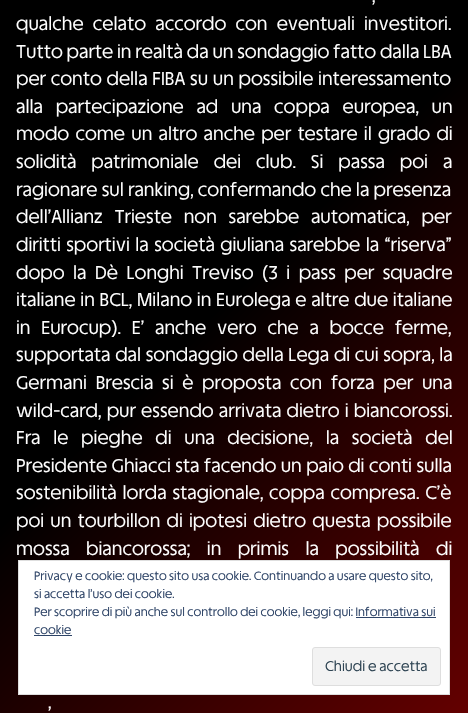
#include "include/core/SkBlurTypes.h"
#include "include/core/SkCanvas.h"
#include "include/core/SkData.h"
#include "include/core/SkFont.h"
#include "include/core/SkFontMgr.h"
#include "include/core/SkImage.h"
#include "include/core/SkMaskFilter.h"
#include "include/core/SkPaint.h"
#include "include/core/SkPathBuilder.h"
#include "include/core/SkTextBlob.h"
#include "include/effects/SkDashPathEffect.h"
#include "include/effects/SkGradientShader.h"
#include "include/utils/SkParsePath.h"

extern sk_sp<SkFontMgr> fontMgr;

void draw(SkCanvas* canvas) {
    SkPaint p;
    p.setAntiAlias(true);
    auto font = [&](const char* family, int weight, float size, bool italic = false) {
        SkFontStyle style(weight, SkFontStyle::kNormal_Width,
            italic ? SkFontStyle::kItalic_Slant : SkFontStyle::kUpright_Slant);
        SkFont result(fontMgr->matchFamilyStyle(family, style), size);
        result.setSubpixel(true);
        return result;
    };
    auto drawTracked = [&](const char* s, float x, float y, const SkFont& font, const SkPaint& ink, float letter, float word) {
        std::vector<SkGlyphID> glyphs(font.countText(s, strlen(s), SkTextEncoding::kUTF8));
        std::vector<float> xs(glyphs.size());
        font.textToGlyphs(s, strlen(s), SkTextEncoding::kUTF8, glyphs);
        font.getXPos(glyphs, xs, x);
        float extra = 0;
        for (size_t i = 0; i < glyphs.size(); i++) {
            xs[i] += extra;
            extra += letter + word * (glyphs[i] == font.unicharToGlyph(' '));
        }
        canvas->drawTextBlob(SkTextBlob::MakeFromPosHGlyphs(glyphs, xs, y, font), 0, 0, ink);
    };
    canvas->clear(0xFFFFFFFF);
    {
        const SkColor colors[] = {0xFFFF0000, 0xFF000000, 0xFF000000, 0xFFFF0000};
        const float stops[] = {0, 0.12f, 0.52f, 1};
        const SkPoint ends[] = {{-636, -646}, {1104, 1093}};
        p.setShader(SkGradientShader::MakeLinear(ends, colors, stops, 4, SkTileMode::kClamp));
        p.setAlpha(255);
    }
    canvas->drawRect(SkRect::MakeLTRB(0, 0, 468, 713), p);
    auto font1 = font("TASA Explorer", 400, 18.4f);
    p.setShader(nullptr);
    p.setColor(0xFFFFFFFF);
    drawTracked(",", 372, 2, font1, p, 0, 8);
    drawTracked("qualche celato accordo con eventuali investitori.", 16, 30, font1, p, 0, 5.5f);
    drawTracked("Tutto parte in realtà da un sondaggio fatto dalla LBA", 16, 58, font1, p, 0, 0.1f);
    drawTracked("per conto della FIBA su un possibile interessamento", 16, 85, font1, p, 0, 1);
    drawTracked("alla partecipazione ad una coppa europea, un", 16, 113, font1, p, 0, 9);
    drawTracked("modo come un altro anche per testare il grado di", 16, 140, font1, p, 0, 2.5f);
    drawTracked("solidità patrimoniale dei club. Si passa poi a", 16, 168, font1, p, 0, 11.25f);
    drawTracked("ragionare sul ranking, confermando che la presenza", 16, 196, font1, p, 0, 0.5f);
    drawTracked("dell’Allianz Trieste non sarebbe automatica, per", 16, 223, font1, p, 0, 8);
    drawTracked("diritti sportivi la società giuliana sarebbe la “riserva”", 16, 251, font1, p, 0, 1.75f);
    drawTracked("dopo la Dè Longhi Treviso (3 i pass per squadre", 16, 279, font1, p, 0, 4.75f);
    drawTracked("italiane in BCL, Milano in Eurolega e altre due italiane", 16, 306, font1, p, 0, 1);
    drawTracked("in Eurocup). E’ anche vero che a bocce ferme,", 16, 334, font1, p, 0, 7);
    drawTracked("supportata dal sondaggio della Lega di cui sopra, la", 16, 361, font1, p, 0, 1);
    drawTracked("Germani Brescia si è proposta con forza per una", 16, 389, font1, p, 0, 5);
    drawTracked("wild-card, pur essendo arrivata dietro i biancorossi.", 16, 417, font1, p, 0, 1.5f);
    drawTracked("Fra le pieghe di una decisione, la società del", 16, 444, font1, p, 0, 9);
    drawTracked("Presidente Ghiacci sta facendo un paio di conti sulla", 16, 472, font1, p, 0, 0.75f);
    drawTracked("sostenibilità lorda stagionale, coppa compresa. C’è", 16, 499, font1, p, 0, 2);
    drawTracked("poi un tourbillon di ipotesi dietro questa possibile", 16, 527, font1, p, 0, 2.5f);
    drawTracked("mossa biancorossa; in primis la possibilità di", 16, 555, font1, p, 0, 12.75f);
    drawTracked("’", 48, 720, font1, p, 0, 11);
    canvas->drawRect(SkRect::MakeLTRB(18.5f, 560.5f, 449.5f, 694.5f), p);
    p.setStyle(SkPaint::kStroke_Style);
    p.setStrokeWidth(1);
    p.setColor(0xFFDEDEDE);
    canvas->drawRect(SkRect::MakeLTRB(18.5f, 560.5f, 449.5f, 694.5f), p);
    auto font2 = font("TASA Explorer", 400, 12);
    p.setStyle(SkPaint::kFill_Style);
    p.setColor(0xFF2E4467);
    {
        const struct { const char* s; float x, y; } items[] = {
            {"Privacy e cookie: questo sito usa cookie. Continuando a usare questo sito,", 34, 580},
            {"si accetta l’uso dei cookie.", 34, 598},
            {"Per scoprire di più anche sul controllo dei cookie, leggi qui: Informativa sui", 34, 616},
            {"cookie", 34, 634},
        };
        for (auto [s, x, y] : items) {
            canvas->drawString(s, x, y, font2, p);
        }
    }
    canvas->drawRect(SkRect::MakeLTRB(356, 617, 436, 618), p);
    canvas->drawRect(SkRect::MakeLTRB(34, 635, 72, 636), p);
    p.setColor(0xFFF3F3F3);
    canvas->drawRoundRect(SkRect::MakeLTRB(312.5f, 647.5f, 440.5f, 685.5f), 2.5f, 2.5f, p);
    p.setStyle(SkPaint::kStroke_Style);
    p.setColor(0xFFDEDEDE);
    canvas->drawRoundRect(SkRect::MakeLTRB(312.5f, 647.5f, 440.5f, 685.5f), 2.5f, 2.5f, p);
    auto font3 = font("TASA Explorer", 400, 14);
    p.setStyle(SkPaint::kFill_Style);
    p.setColor(0xFF2E4453);
    canvas->drawString("Chiudi e accetta", 325, 671, font3, p);
}
